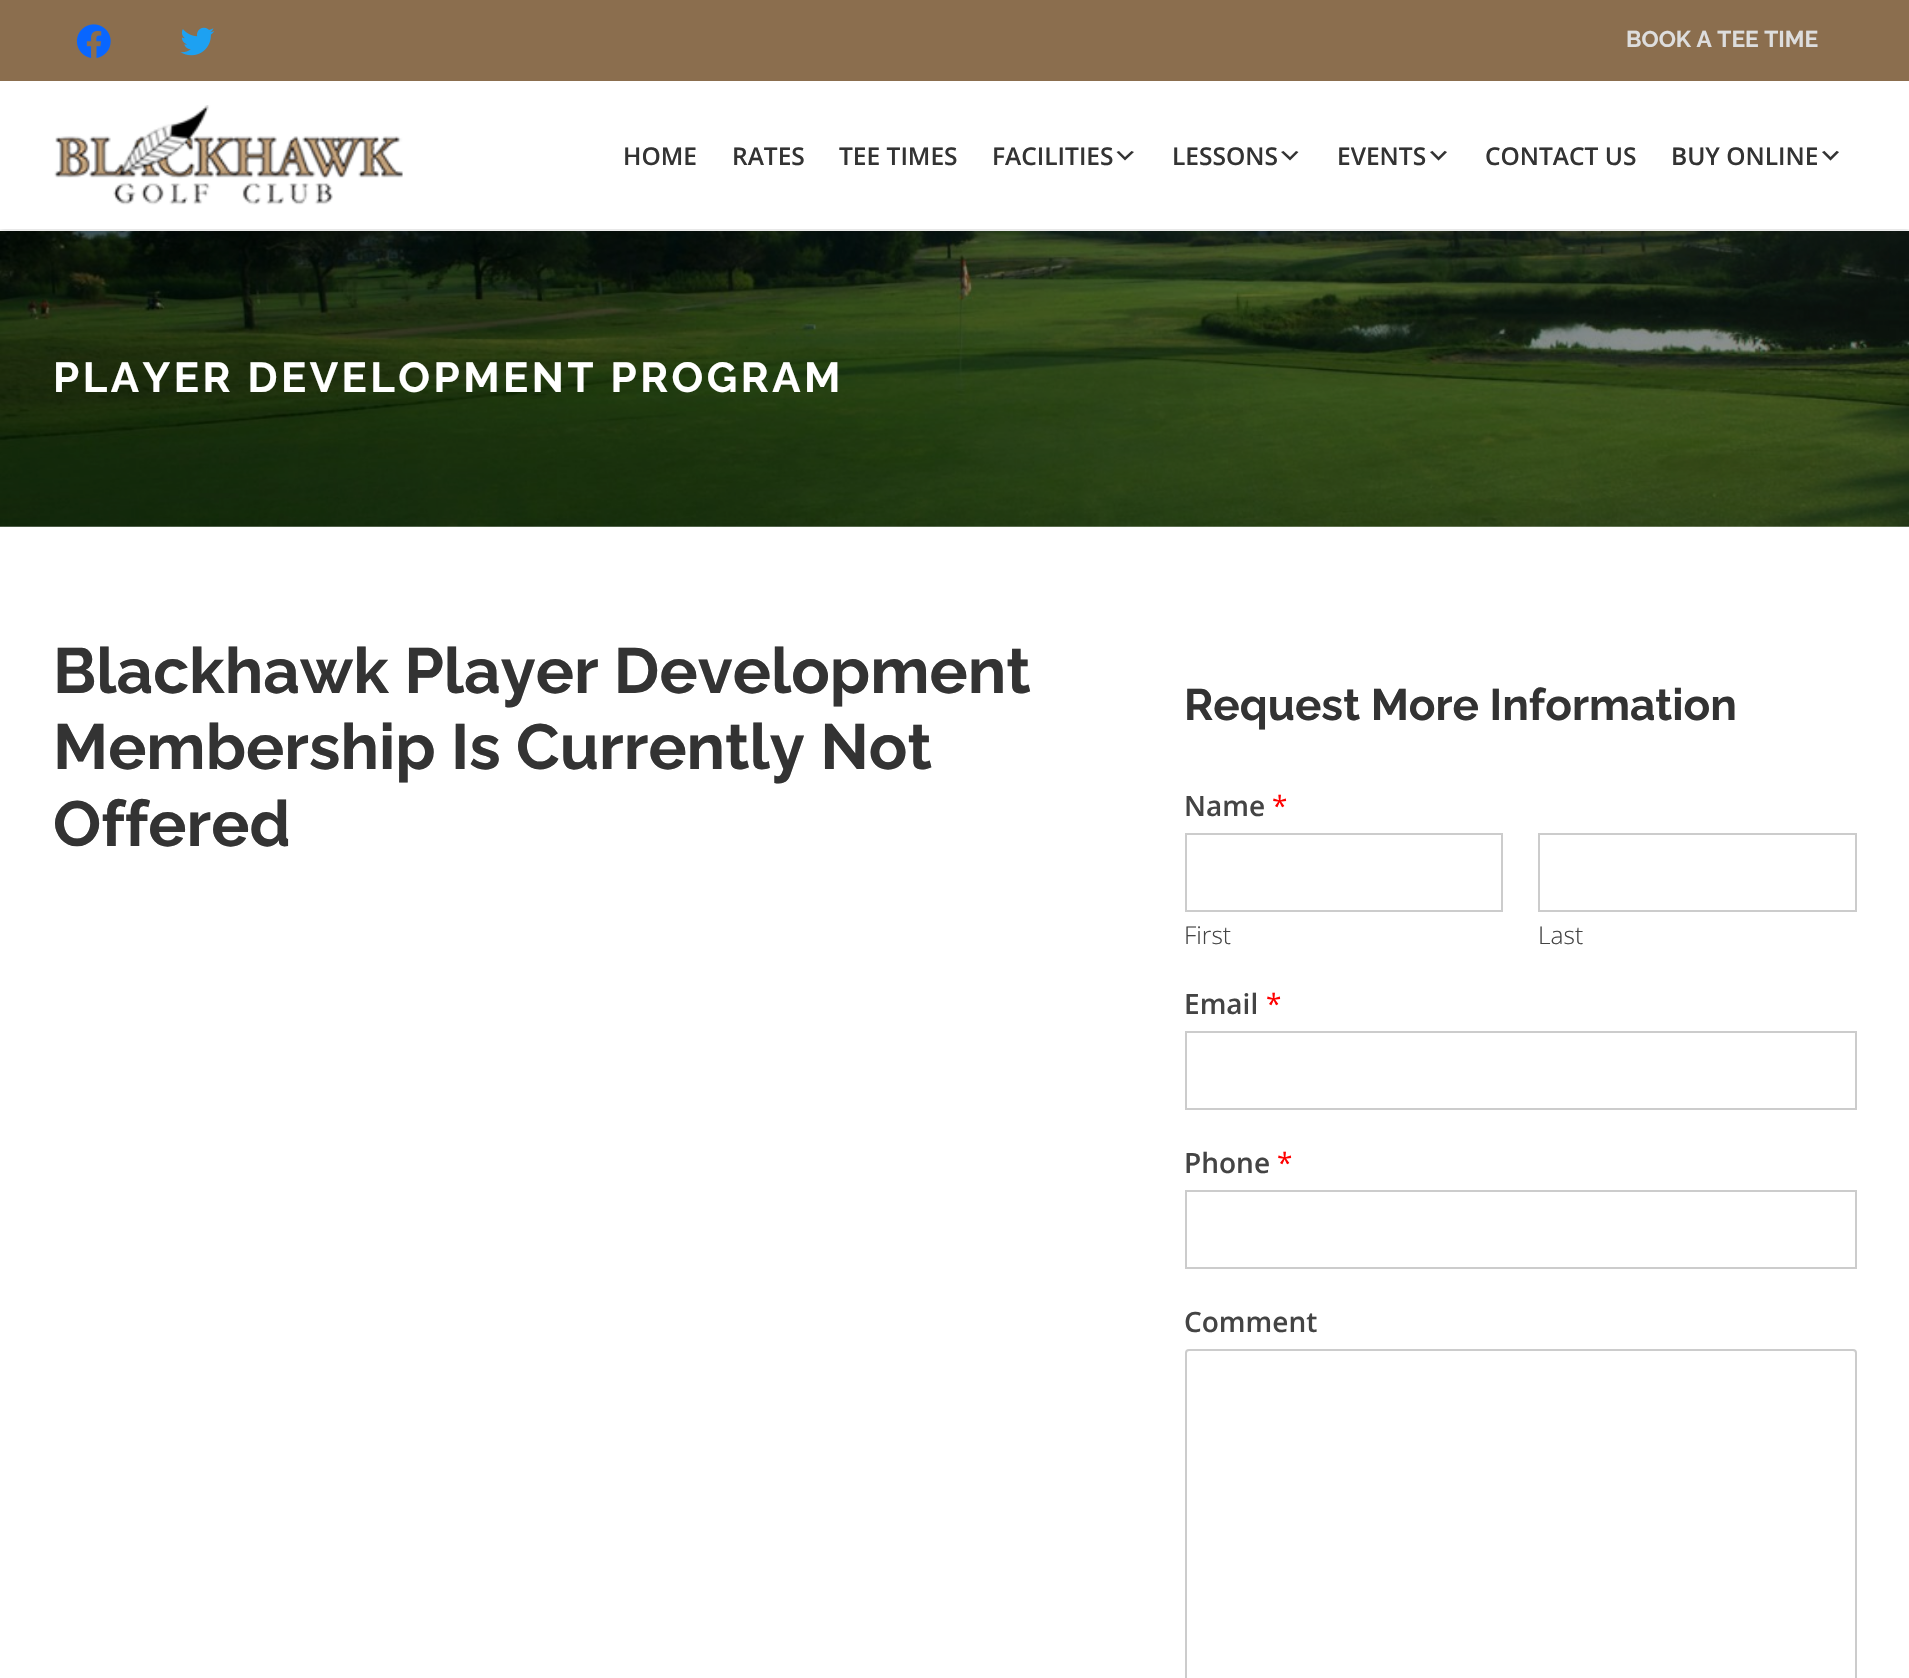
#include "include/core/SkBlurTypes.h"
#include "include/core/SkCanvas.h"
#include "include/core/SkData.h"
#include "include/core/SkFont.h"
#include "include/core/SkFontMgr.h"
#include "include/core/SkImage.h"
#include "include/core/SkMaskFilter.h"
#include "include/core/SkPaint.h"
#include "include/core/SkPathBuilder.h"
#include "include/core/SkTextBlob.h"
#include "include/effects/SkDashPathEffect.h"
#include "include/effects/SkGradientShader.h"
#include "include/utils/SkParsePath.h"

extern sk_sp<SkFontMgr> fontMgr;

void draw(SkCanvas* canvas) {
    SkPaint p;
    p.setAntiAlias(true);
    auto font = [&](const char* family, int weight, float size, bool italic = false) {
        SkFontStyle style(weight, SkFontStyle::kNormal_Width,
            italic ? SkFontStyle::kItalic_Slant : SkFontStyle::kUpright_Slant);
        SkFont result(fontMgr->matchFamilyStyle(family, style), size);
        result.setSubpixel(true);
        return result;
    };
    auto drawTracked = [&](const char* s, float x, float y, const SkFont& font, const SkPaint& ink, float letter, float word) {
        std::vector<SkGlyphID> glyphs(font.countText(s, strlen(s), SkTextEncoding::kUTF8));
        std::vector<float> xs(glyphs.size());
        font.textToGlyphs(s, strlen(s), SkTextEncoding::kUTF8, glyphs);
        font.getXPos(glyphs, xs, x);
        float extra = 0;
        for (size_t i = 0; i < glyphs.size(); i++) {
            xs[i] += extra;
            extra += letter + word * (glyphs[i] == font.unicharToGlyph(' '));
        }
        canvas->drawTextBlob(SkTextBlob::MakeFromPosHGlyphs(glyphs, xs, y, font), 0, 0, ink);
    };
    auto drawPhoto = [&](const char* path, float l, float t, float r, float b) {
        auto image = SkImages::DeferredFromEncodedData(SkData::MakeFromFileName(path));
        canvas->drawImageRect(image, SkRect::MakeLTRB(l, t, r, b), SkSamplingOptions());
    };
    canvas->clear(0xFFFFFFFF);
    p.setColor(0xFF8B6E4E);
    canvas->drawRect(SkRect::MakeLTRB(0, 0, 1909, 81), p);
    drawPhoto("media/1.png", 76, 24, 111, 58);
    drawPhoto("media/2.png", 180, 27, 215, 56);
    auto font1 = font("Raleway", 700, 22.75f);
    p.setColor(0xFFDDDDDD);
    canvas->drawString("BOOK A TEE TIME", 1626, 47, font1, p);
    drawPhoto("media/6.png", 0, 231, 1909, 527);
    drawPhoto("media/5.png", 60, 231, 1789, 260);
    canvas->save();
    canvas->clipRect(SkRect::MakeLTRB(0, 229, 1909, 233));
    p.setColor(0x1F000000);
    p.setMaskFilter(SkMaskFilter::MakeBlur(kNormal_SkBlurStyle, 2.5f));
    canvas->drawRect(SkRect::MakeLTRB(0, 82, 1909, 231), p);
    p.setMaskFilter(nullptr);
    canvas->restore();
    drawPhoto("media/3.png", 54, 105, 403, 205);
    auto font2 = font("Open Sans", 600, 24.5f);
    p.setColor(0xFF333333);
    {
        const struct { const char* s; float x, y; } items[] = {
            {"HOME", 623, 165},
            {"RATES", 732, 165},
            {"TEE TIMES", 839, 165},
            {"FACILITIES", 992, 165},
        };
        for (auto [s, x, y] : items) {
            canvas->drawString(s, x, y, font2, p);
        }
    }
    canvas->drawPath(SkPathBuilder().moveTo(1119, 151).lineTo(1125, 157).lineTo(1131.5f, 151).lineTo(1134, 152).lineTo(1125, 160.5f).lineTo(1116.5f, 152).close().detach(), p);
    canvas->drawString("LESSONS", 1172, 165, font2, p);
    canvas->drawPath(SkPathBuilder().moveTo(1283.5f, 151).lineTo(1290, 157).lineTo(1296, 151).lineTo(1298.5f, 152).lineTo(1290, 160.5f).lineTo(1281, 152).close().detach(), p);
    canvas->drawString("EVENTS", 1337, 165, font2, p);
    drawPhoto("media/4.png", 1430, 150, 1447, 161);
    canvas->drawString("CONTACT US", 1485, 165, font2, p);
    canvas->drawString("BUY ONLINE", 1671, 165, font2, p);
    drawPhoto("media/4.png", 1822, 150, 1839, 161);
    auto font3 = font("Raleway", 700, 42);
    p.setColor(0xFFFFFFFF);
    drawTracked("PLAYER DEVELOPMENT PROGRAM", 53, 392, font3, p, 3.5f, 0);
    auto font4 = font("Raleway", 700, 63.75f);
    p.setColor(0xFF333333);
    {
        const struct { const char* s; float x, y; } items[] = {
            {"Blackhawk Player Development", 53, 693},
            {"Membership Is Currently Not", 53, 769},
            {"Offered", 53, 846},
        };
        for (auto [s, x, y] : items) {
            canvas->drawString(s, x, y, font4, p);
        }
    }
    auto font5 = font("Raleway", 700, 44.1f);
    canvas->drawString("Request More Information", 1184, 720, font5, p);
    auto font6 = font("Open Sans", 600, 28);
    p.setColor(0xFF444444);
    canvas->drawString("Name", 1184, 816, font6, p);
    auto font7 = font("Open Sans", 400, 28);
    p.setColor(0xFFFF0000);
    canvas->drawString("*", 1272, 816, font7, p);
    p.setStyle(SkPaint::kStroke_Style);
    p.setStrokeWidth(2);
    p.setColor(0xFFCCCCCC);
    canvas->drawRect(SkRect::MakeLTRB(1186, 834, 1502, 911), p);
    auto font8 = font("Open Sans", 300, 24.5f);
    p.setStyle(SkPaint::kFill_Style);
    p.setColor(0xFF444444);
    canvas->drawString("First", 1184, 944, font8, p);
    p.setStyle(SkPaint::kStroke_Style);
    p.setColor(0xFFCCCCCC);
    canvas->drawRect(SkRect::MakeLTRB(1539, 834, 1856, 911), p);
    p.setStyle(SkPaint::kFill_Style);
    p.setColor(0xFF444444);
    canvas->drawString("Last", 1538, 944, font8, p);
    canvas->drawString("Email", 1184, 1014, font6, p);
    p.setColor(0xFFFF0000);
    canvas->drawString("*", 1266, 1014, font7, p);
    p.setStyle(SkPaint::kStroke_Style);
    p.setColor(0xFFCCCCCC);
    canvas->drawRect(SkRect::MakeLTRB(1186, 1032, 1856, 1109), p);
    p.setStyle(SkPaint::kFill_Style);
    p.setColor(0xFF444444);
    canvas->drawString("Phone", 1184, 1173, font6, p);
    p.setColor(0xFFFF0000);
    canvas->drawString("*", 1277, 1173, font7, p);
    p.setStyle(SkPaint::kStroke_Style);
    p.setColor(0xFFCCCCCC);
    canvas->drawRect(SkRect::MakeLTRB(1186, 1191, 1856, 1268), p);
    p.setStyle(SkPaint::kFill_Style);
    p.setColor(0xFF444444);
    canvas->drawString("Comment", 1184, 1332, font6, p);
    p.setStyle(SkPaint::kStroke_Style);
    p.setColor(0xFFCCCCCC);
    canvas->drawRoundRect(SkRect::MakeLTRB(1186, 1350, 1856, 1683), 3, 3, p);
}
